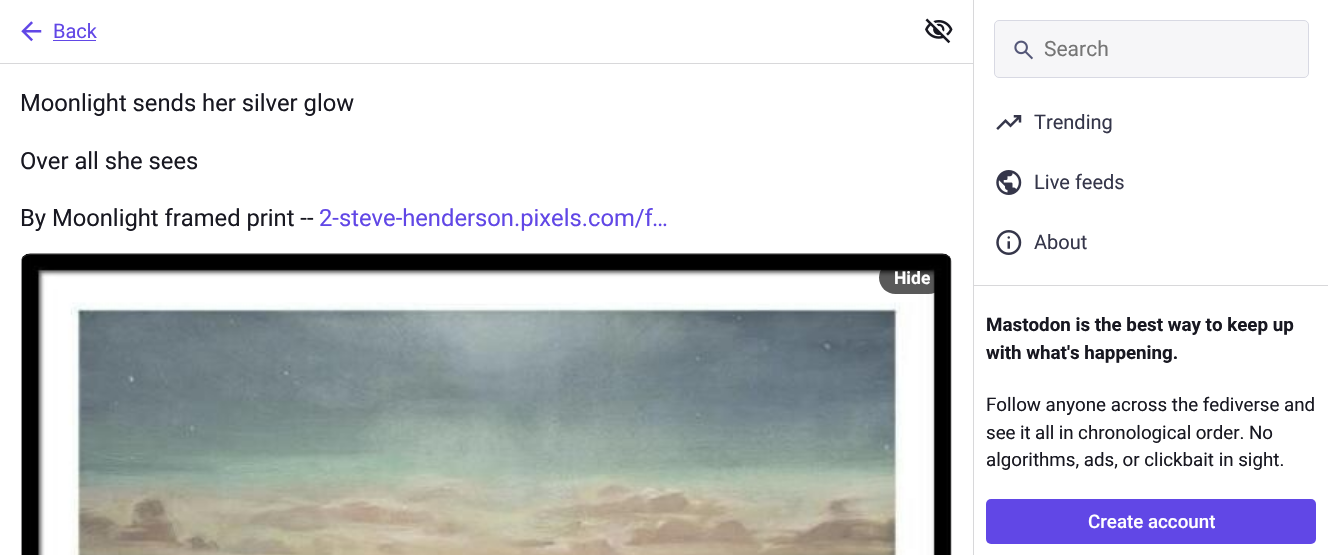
#include "include/core/SkBlurTypes.h"
#include "include/core/SkCanvas.h"
#include "include/core/SkData.h"
#include "include/core/SkFont.h"
#include "include/core/SkFontMgr.h"
#include "include/core/SkImage.h"
#include "include/core/SkMaskFilter.h"
#include "include/core/SkPaint.h"
#include "include/core/SkPathBuilder.h"
#include "include/core/SkTextBlob.h"
#include "include/effects/SkDashPathEffect.h"
#include "include/effects/SkGradientShader.h"
#include "include/utils/SkParsePath.h"

extern sk_sp<SkFontMgr> fontMgr;

void draw(SkCanvas* canvas) {
    SkPaint p;
    p.setAntiAlias(true);
    auto font = [&](const char* family, int weight, float size, bool italic = false) {
        SkFontStyle style(weight, SkFontStyle::kNormal_Width,
            italic ? SkFontStyle::kItalic_Slant : SkFontStyle::kUpright_Slant);
        SkFont result(fontMgr->matchFamilyStyle(family, style), size);
        result.setSubpixel(true);
        return result;
    };
    auto drawTracked = [&](const char* s, float x, float y, const SkFont& font, const SkPaint& ink, float letter, float word) {
        std::vector<SkGlyphID> glyphs(font.countText(s, strlen(s), SkTextEncoding::kUTF8));
        std::vector<float> xs(glyphs.size());
        font.textToGlyphs(s, strlen(s), SkTextEncoding::kUTF8, glyphs);
        font.getXPos(glyphs, xs, x);
        float extra = 0;
        for (size_t i = 0; i < glyphs.size(); i++) {
            xs[i] += extra;
            extra += letter + word * (glyphs[i] == font.unicharToGlyph(' '));
        }
        canvas->drawTextBlob(SkTextBlob::MakeFromPosHGlyphs(glyphs, xs, y, font), 0, 0, ink);
    };
    auto drawPhoto = [&](const char* path, float l, float t, float r, float b) {
        auto image = SkImages::DeferredFromEncodedData(SkData::MakeFromFileName(path));
        canvas->drawImageRect(image, SkRect::MakeLTRB(l, t, r, b), SkSamplingOptions());
    };
    canvas->clear(0xFFFFFFFF);
    p.setColor(0xFFD8D8DA);
    canvas->drawRect(SkRect::MakeLTRB(0, 63, 973, 64), p);
    drawPhoto("media/1.png", 21, 21, 42, 42);
    auto font1 = font("Roboto", 400, 20);
    p.setColor(0xFF6147E6);
    canvas->drawString("Back", 53, 38, font1, p);
    canvas->drawRect(SkRect::MakeLTRB(53, 40, 96, 41), p);
    drawPhoto("media/2.png", 925, 18, 953, 44);
    auto font2 = font("Roboto", 400, 23.75f);
    p.setColor(0xFF181821);
    {
        const struct { const char* s; float x, y; } items[] = {
            {"Moonlight sends her silver glow", 20, 111},
            {"Over all she sees", 20, 169},
            {"By Moonlight framed print --", 20, 226},
        };
        for (auto [s, x, y] : items) {
            canvas->drawString(s, x, y, font2, p);
        }
    }
    p.setColor(0xFF6147E6);
    canvas->drawString("2-steve-henderson.pixels.com/f", 319, 226, font2, p);
    canvas->drawString("…", 652, 226, font2, p);
    drawPhoto("media/3.png", 21, 253, 952, 555);
    p.setStyle(SkPaint::kStroke_Style);
    p.setStrokeWidth(1);
    p.setColor(0x26FCF8FF);
    canvas->drawRoundRect(SkRect::MakeLTRB(20.5f, 254.5f, 952.5f, 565.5f), 9.5f, 9.5f, p);
    p.setStyle(SkPaint::kFill_Style);
    p.setColor(0xA6000000);
    canvas->drawRoundRect(SkRect::MakeLTRB(879, 261, 945, 294), 16.5f, 16.5f, p);
    auto font3 = font("Roboto", 700, 17.5f);
    p.setColor(0xFFFFFFFF);
    canvas->drawString("Hide", 894, 284, font3, p);
    p.setColor(0xFFD8D8DA);
    canvas->drawRect(SkRect::MakeLTRB(973, 0, 974, 555), p);
    p.setColor(0xFFF6F6F8);
    canvas->drawRoundRect(SkRect::MakeLTRB(994.5f, 20.5f, 1308.5f, 77.5f), 4.5f, 4.5f, p);
    p.setStyle(SkPaint::kStroke_Style);
    p.setColor(0xFFD8D9E3);
    canvas->drawRoundRect(SkRect::MakeLTRB(994.5f, 20.5f, 1308.5f, 77.5f), 4.5f, 4.5f, p);
    drawPhoto("media/4.png", 1014, 40, 1033, 60);
    auto font4 = font("Roboto", 400, 21);
    p.setStyle(SkPaint::kFill_Style);
    p.setColor(0xFF757575);
    canvas->drawString("Search", 1044, 56, font4, p);
    drawPhoto("media/5.png", 996, 115, 1022, 130);
    p.setColor(0xFF35364A);
    canvas->drawString("Trending", 1034, 129, font1, p);
    drawPhoto("media/6.png", 996, 170, 1022, 195);
    canvas->drawString("Live feeds", 1034, 189, font1, p);
    drawPhoto("media/7.png", 996, 230, 1022, 255);
    canvas->drawString("About", 1034, 249, font1, p);
    p.setColor(0xFFD8D8DA);
    canvas->drawRect(SkRect::MakeLTRB(974, 285, 1328, 286), p);
    auto font5 = font("Roboto", 700, 18.75f);
    p.setColor(0xFF181821);
    canvas->drawString("Mastodon is the best way to keep up", 986, 331, font5, p);
    canvas->drawString("with what's happening.", 986, 359, font5, p);
    auto font6 = font("Roboto", 400, 18.75f);
    canvas->drawString("Follow anyone across the fediverse and", 986, 411, font6, p);
    drawTracked("see it all in chronological order. No", 986, 439, font6, p, 0, -0.25f);
    canvas->drawString("algorithms, ads, or clickbait in sight.", 986, 466, font6, p);
    p.setColor(0xFF6147E6);
    canvas->drawRoundRect(SkRect::MakeLTRB(986, 499, 1316, 544), 5, 5, p);
    auto font7 = font("Roboto", 500, 18.75f);
    p.setColor(0xFFFFFFFF);
    canvas->drawString("Create account", 1088, 528, font7, p);
}
